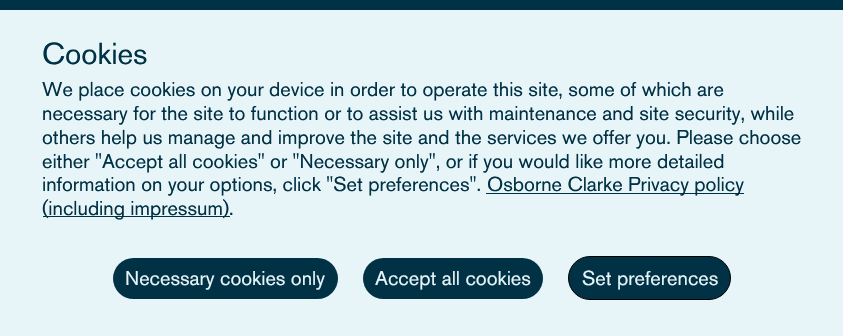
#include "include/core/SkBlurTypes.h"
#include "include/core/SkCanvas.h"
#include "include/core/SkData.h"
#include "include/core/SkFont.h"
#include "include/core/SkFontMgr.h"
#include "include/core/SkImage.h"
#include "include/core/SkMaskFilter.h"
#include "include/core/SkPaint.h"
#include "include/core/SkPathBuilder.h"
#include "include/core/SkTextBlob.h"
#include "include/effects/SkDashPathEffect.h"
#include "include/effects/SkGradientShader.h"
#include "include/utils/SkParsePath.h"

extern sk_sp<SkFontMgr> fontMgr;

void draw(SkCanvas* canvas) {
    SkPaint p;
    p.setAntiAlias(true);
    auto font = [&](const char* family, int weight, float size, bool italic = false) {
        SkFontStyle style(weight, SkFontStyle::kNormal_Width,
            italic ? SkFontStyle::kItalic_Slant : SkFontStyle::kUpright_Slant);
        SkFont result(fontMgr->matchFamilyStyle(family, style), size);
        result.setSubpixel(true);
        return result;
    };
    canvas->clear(0xFF003145);
    p.setColor(0xFFE7F5F8);
    canvas->drawRect(SkRect::MakeLTRB(0, 10, 843, 336), p);
    auto font1 = font("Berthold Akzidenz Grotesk", 400, 30);
    p.setColor(0xFF003145);
    canvas->drawString("Cookies", 42, 64, font1, p);
    auto font2 = font("Berthold Akzidenz Grotesk", 400, 20);
    {
        const struct { const char* s; float x, y; } items[] = {
            {"We place cookies on your device in order to operate this site, some of which are", 42, 96},
            {"necessary for the site to function or to assist us with maintenance and site security, while", 42, 120},
            {"others help us manage and improve the site and the services we offer you. Please choose", 42, 144},
            {"either \"Accept all cookies\" or \"Necessary only\", or if you would like more detailed", 42, 168},
            {"information on your options, click \"Set preferences\".", 42, 191},
        };
        for (auto [s, x, y] : items) {
            canvas->drawString(s, x, y, font2, p);
        }
    }
    canvas->drawRect(SkRect::MakeLTRB(486, 193, 744, 194), p);
    canvas->drawString("Osborne Clarke Privacy policy", 487, 191, font2, p);
    canvas->drawRect(SkRect::MakeLTRB(43, 216, 230, 217), p);
    canvas->drawString("(including impressum)", 42, 215, font2, p);
    canvas->drawString(".", 229, 215, font2, p);
    canvas->drawRoundRect(SkRect::MakeLTRB(113, 258, 338, 299), 20.5f, 20.5f, p);
    p.setColor(0xFFE7F5F8);
    canvas->drawString("Necessary cookies only", 125, 285, font2, p);
    p.setColor(0xFF003145);
    canvas->drawRoundRect(SkRect::MakeLTRB(363, 258, 543, 299), 20.5f, 20.5f, p);
    p.setColor(0xFFE7F5F8);
    canvas->drawString("Accept all cookies", 375, 285, font2, p);
    p.setColor(0xFF003145);
    canvas->drawRoundRect(SkRect::MakeLTRB(568.5f, 256.5f, 730.5f, 299.5f), 21.5f, 21.5f, p);
    p.setStyle(SkPaint::kStroke_Style);
    p.setStrokeWidth(1);
    p.setColor(0xFF000000);
    canvas->drawRoundRect(SkRect::MakeLTRB(568.5f, 256.5f, 730.5f, 299.5f), 21.5f, 21.5f, p);
    p.setStyle(SkPaint::kFill_Style);
    p.setColor(0xFFE7F5F8);
    canvas->drawString("Set preferences", 582, 285, font2, p);
}
